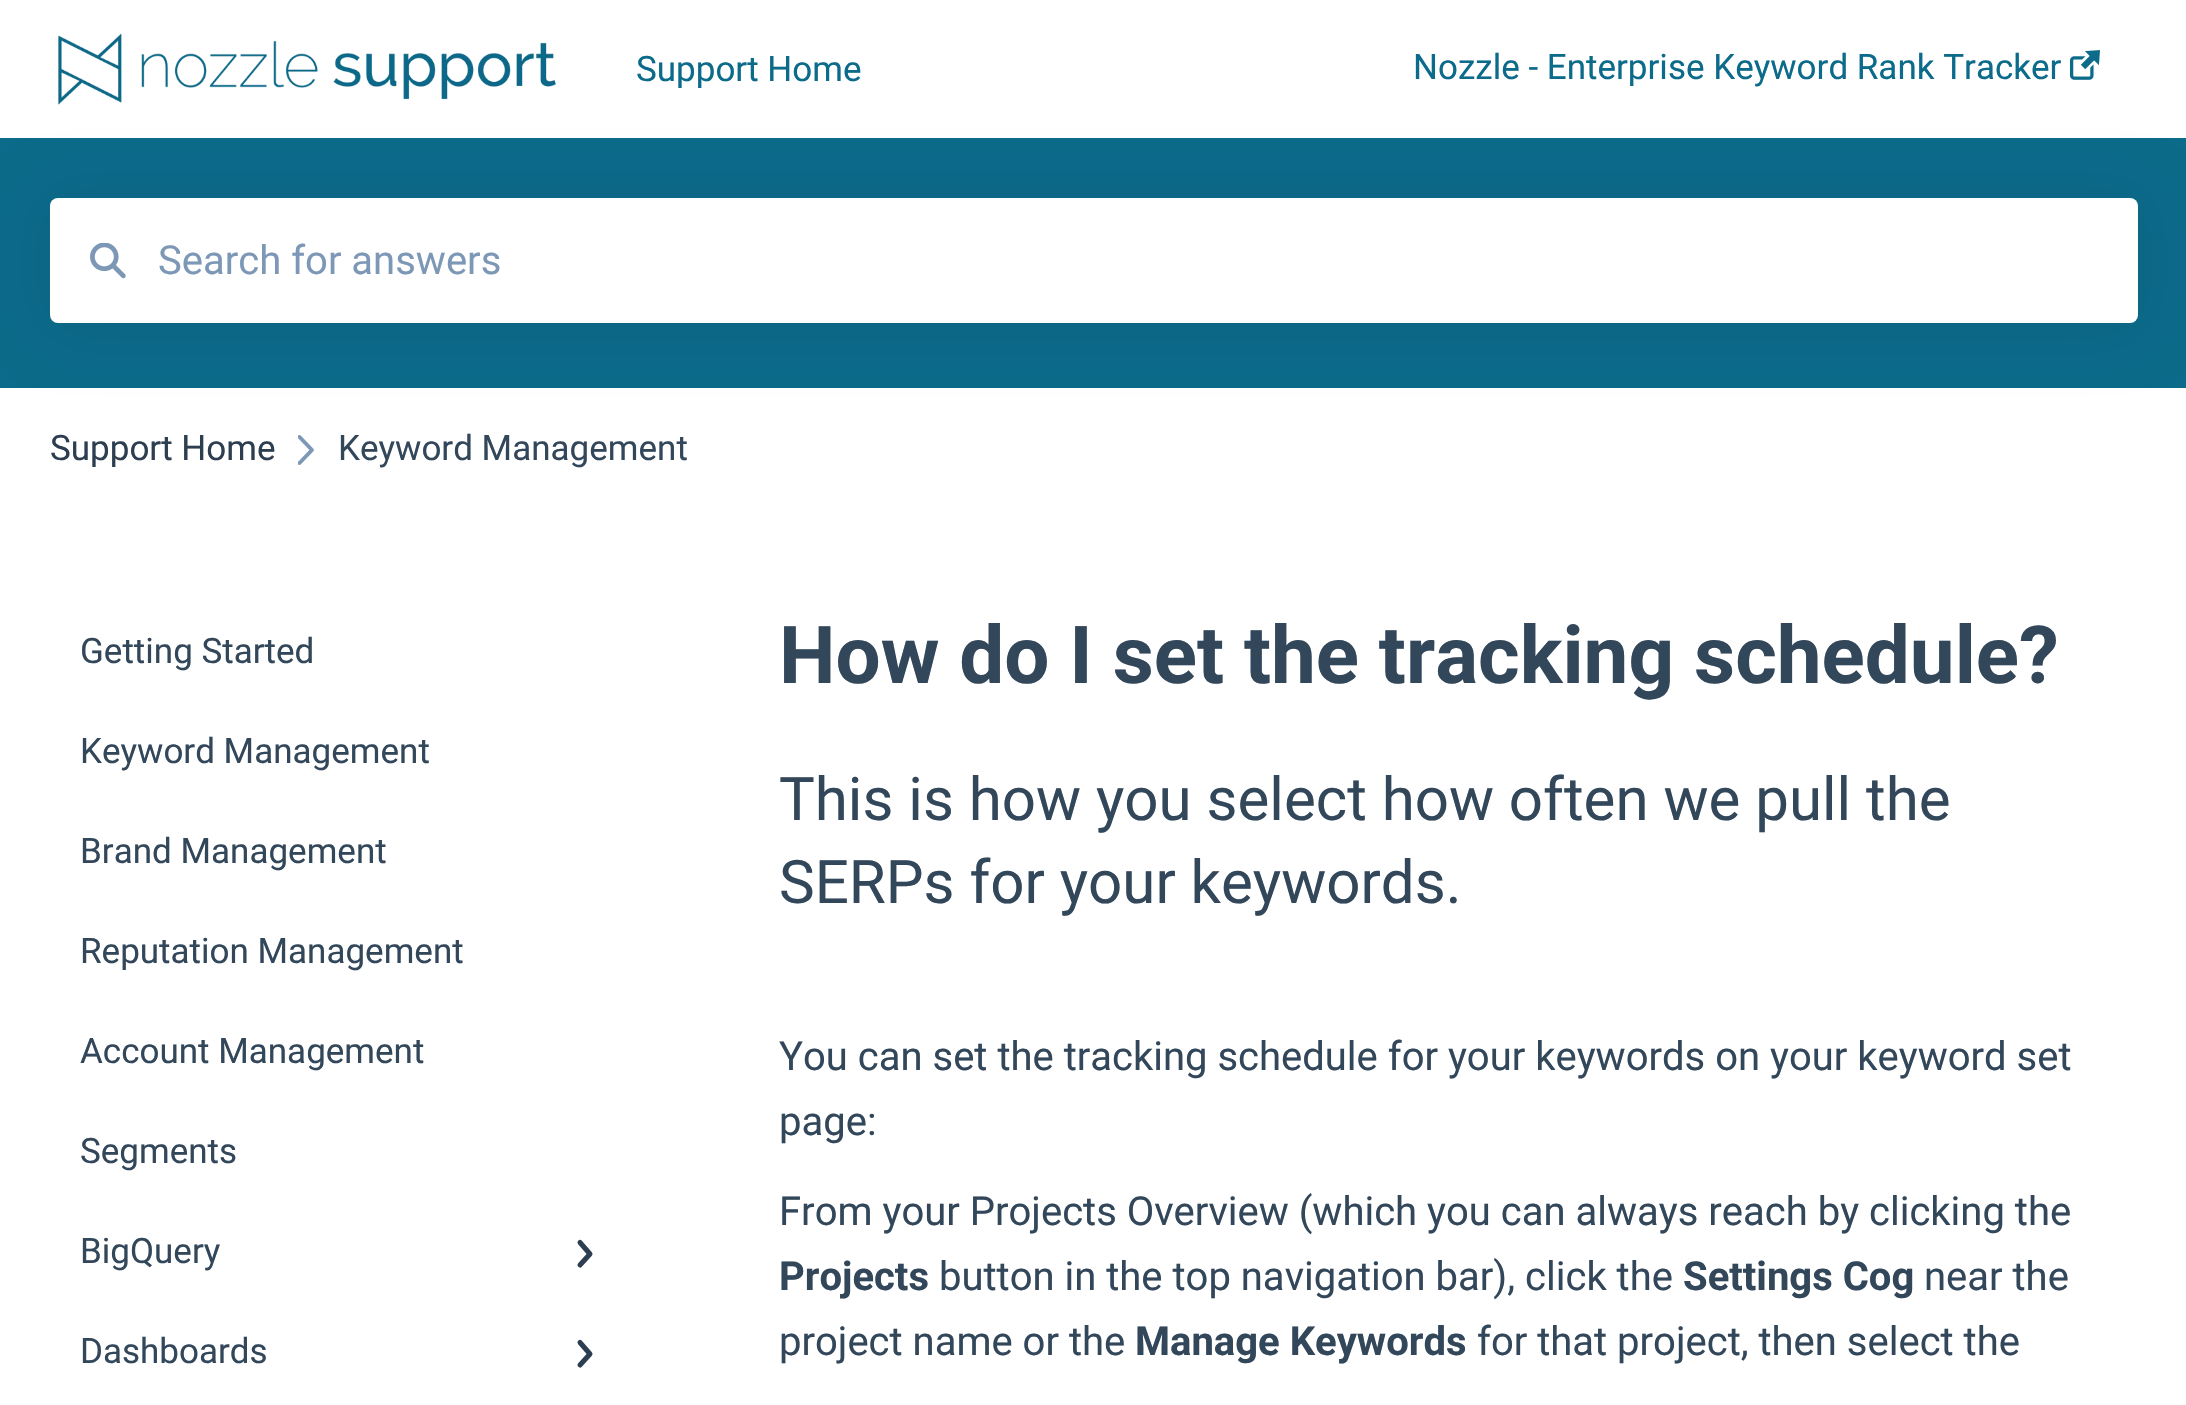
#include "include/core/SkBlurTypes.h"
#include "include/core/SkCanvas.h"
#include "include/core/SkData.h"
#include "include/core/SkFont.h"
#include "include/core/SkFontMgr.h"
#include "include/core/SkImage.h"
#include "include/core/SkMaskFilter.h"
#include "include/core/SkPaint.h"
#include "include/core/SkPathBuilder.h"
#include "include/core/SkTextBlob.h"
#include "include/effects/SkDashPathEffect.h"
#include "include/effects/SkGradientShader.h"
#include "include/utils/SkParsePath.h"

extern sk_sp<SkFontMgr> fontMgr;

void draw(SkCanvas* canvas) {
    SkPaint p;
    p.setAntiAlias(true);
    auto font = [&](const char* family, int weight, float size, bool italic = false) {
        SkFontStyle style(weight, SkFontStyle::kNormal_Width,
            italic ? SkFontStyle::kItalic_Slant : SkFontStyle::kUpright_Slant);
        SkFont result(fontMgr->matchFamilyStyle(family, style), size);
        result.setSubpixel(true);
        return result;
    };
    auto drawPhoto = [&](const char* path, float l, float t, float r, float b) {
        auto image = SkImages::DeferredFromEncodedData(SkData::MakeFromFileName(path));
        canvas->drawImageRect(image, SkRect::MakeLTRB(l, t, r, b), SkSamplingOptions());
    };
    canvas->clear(0xFFFFFFFF);
    drawPhoto("media/1.png", 58, 33, 556, 105);
    auto font1 = font("Roboto", 400, 35);
    p.setColor(0xFF0C6A8A);
    canvas->drawString("Support Home", 636, 81, font1, p);
    canvas->drawString("Nozzle - Enterprise Keyword Rank Tracker", 1413, 79, font1, p);
    drawPhoto("media/2.png", 2070, 50, 2100, 80);
    canvas->drawRect(SkRect::MakeLTRB(0, 138, 2186, 388), p);
    p.setColor(0x14000000);
    p.setMaskFilter(SkMaskFilter::MakeBlur(kNormal_SkBlurStyle, 30));
    canvas->drawRoundRect(SkRect::MakeLTRB(50, 200, 2138, 325), 8, 8, p);
    p.setMaskFilter(nullptr);
    p.setColor(0xFFFFFFFF);
    canvas->drawRoundRect(SkRect::MakeLTRB(50, 198, 2138, 323), 8, 8, p);
    drawPhoto("media/3.png", 90, 243, 126, 279);
    auto font2 = font("Roboto", 400, 40);
    p.setColor(0xFF7C98B6);
    canvas->drawString("Search for answers", 158, 274, font2, p);
    p.setColor(0xFF2D3E50);
    canvas->drawString("Support Home", 50, 460, font1, p);
    drawPhoto("media/4.png", 298, 435, 314, 465);
    p.setColor(0xFF33475B);
    {
        const struct { const char* s; float x, y; } items[] = {
            {"Keyword Management", 338, 460},
            {"Getting Started", 80, 663},
            {"Keyword Management", 80, 763},
            {"Brand Management", 80, 863},
            {"Reputation Management", 80, 963},
            {"Account Management", 80, 1063},
            {"Segments", 80, 1163},
            {"BigQuery", 80, 1263},
        };
        for (auto [s, x, y] : items) {
            canvas->drawString(s, x, y, font1, p);
        }
    }
    p.setStyle(SkPaint::kStroke_Style);
    p.setStrokeWidth(5);
    p.setStrokeCap(SkPaint::kRound_Cap);
    p.setStrokeJoin(SkPaint::kRound_Join);
    p.setColor(0xFF2D3E50);
    canvas->drawPath(SkPathBuilder().moveTo(580, 1242.5f).lineTo(590, 1254).lineTo(580, 1265).detach(), p);
    p.setStyle(SkPaint::kFill_Style);
    p.setColor(0xFF33475B);
    canvas->drawString("Dashboards", 80, 1363, font1, p);
    p.setStyle(SkPaint::kStroke_Style);
    p.setColor(0xFF2D3E50);
    canvas->drawPath(SkPathBuilder().moveTo(580, 1342.5f).lineTo(590, 1354).lineTo(580, 1365).detach(), p);
    auto font3 = font("Roboto", 700, 80);
    p.setStyle(SkPaint::kFill_Style);
    p.setColor(0xFF33475B);
    canvas->drawString("How do I set the tracking schedule?", 779, 683, font3, p);
    auto font4 = font("Roboto", 400, 60);
    canvas->drawString("This is how you select how often we pull the", 779, 820, font4, p);
    canvas->drawString("SERPs for your keywords.", 779, 903, font4, p);
    {
        const struct { const char* s; float x, y; } items[] = {
            {"You can set the tracking schedule for your keywords on your keyword set", 779, 1070},
            {"page:", 779, 1135},
            {"From your Projects Overview (which you can always reach by clicking the", 779, 1225},
        };
        for (auto [s, x, y] : items) {
            canvas->drawString(s, x, y, font2, p);
        }
    }
    auto font5 = font("Roboto", 700, 40);
    canvas->drawString("Projects", 779, 1290, font5, p);
    canvas->drawString("button in the top navigation bar), click the", 939, 1290, font2, p);
    canvas->drawString("Settings Cog", 1683, 1290, font5, p);
    canvas->drawString("near the", 1924, 1290, font2, p);
    canvas->drawString("project name or the", 779, 1355, font2, p);
    canvas->drawString("Manage Keywords", 1135, 1355, font5, p);
    canvas->drawString("for that project, then select the", 1477, 1355, font2, p);
}
